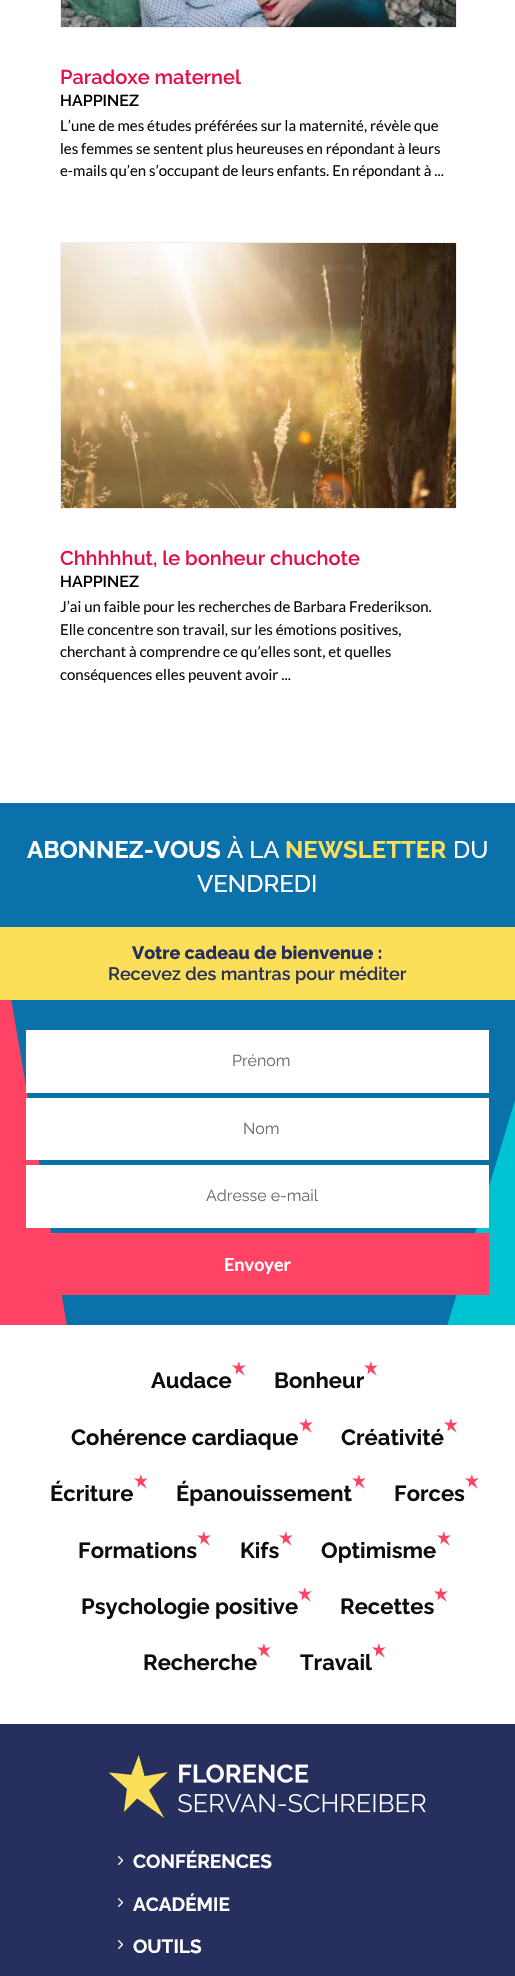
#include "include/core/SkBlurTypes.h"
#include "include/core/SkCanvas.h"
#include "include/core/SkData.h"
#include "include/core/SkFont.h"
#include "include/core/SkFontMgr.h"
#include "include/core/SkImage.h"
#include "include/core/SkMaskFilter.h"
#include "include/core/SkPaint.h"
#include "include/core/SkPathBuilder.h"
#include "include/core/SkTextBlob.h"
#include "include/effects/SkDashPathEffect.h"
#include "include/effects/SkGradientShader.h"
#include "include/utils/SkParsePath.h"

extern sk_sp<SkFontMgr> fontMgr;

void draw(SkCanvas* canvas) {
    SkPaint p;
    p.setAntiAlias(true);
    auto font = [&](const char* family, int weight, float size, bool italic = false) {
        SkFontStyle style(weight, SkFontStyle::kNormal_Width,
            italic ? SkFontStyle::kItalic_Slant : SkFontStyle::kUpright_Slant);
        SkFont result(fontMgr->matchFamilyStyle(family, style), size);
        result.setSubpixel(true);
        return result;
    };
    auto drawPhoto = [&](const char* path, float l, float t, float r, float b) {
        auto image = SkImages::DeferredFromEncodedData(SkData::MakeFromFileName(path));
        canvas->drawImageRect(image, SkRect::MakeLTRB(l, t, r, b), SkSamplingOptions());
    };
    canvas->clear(0xFFFFFFFF);
    p.setStyle(SkPaint::kStroke_Style);
    p.setStrokeWidth(1);
    p.setColor(0xFFEEEEEE);
    canvas->drawRect(SkRect::MakeLTRB(60.5f, -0.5f, 456.5f, 27.5f), p);
    drawPhoto("media/1.png", 61, 0, 456, 27);
    auto font1 = font("Raleway", 100, 20);
    p.setStyle(SkPaint::kFill_Style);
    p.setColor(0xFFE51146);
    canvas->drawString("Paradoxe maternel", 60, 84, font1, p);
    auto font2 = font("Raleway", 100, 16);
    p.setColor(0xFF000000);
    canvas->drawString("HAPPINEZ", 60, 106, font2, p);
    auto font3 = font("Lato", 400, 15);
    p.setColor(0xFF0D0D0D);
    {
        const struct { const char* s; float x, y; } items[] = {
            {"L’une de mes études préférées sur la maternité, révèle que", 60, 131},
            {"les femmes se sentent plus heureuses en répondant à leurs", 60, 154},
            {"e-mails qu’en s’occupant de leurs enfants. En répondant à ...", 60, 176},
        };
        for (auto [s, x, y] : items) {
            canvas->drawString(s, x, y, font3, p);
        }
    }
    p.setStyle(SkPaint::kStroke_Style);
    p.setColor(0xFFEEEEEE);
    canvas->drawRect(SkRect::MakeLTRB(60.5f, 242.5f, 456.5f, 508.5f), p);
    drawPhoto("media/2.png", 61, 243, 456, 508);
    p.setStyle(SkPaint::kFill_Style);
    p.setColor(0xFFE51146);
    canvas->drawString("Chhhhhut, le bonheur chuchote", 60, 565, font1, p);
    p.setColor(0xFF000000);
    canvas->drawString("HAPPINEZ", 60, 587, font2, p);
    p.setColor(0xFF0D0D0D);
    {
        const struct { const char* s; float x, y; } items[] = {
            {"J’ai un faible pour les recherches de Barbara Frederikson.", 60, 612},
            {"Elle concentre son travail, sur les émotions positives,", 60, 635},
            {"cherchant à comprendre ce qu’elles sont, et quelles", 60, 657},
            {"conséquences elles peuvent avoir ...", 60, 680},
        };
        for (auto [s, x, y] : items) {
            canvas->drawString(s, x, y, font3, p);
        }
    }
    p.setColor(0xFF0B71AB);
    canvas->drawRect(SkRect::MakeLTRB(0, 803, 515, 1325), p);
    auto font4 = font("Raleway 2", 100, 24);
    p.setColor(0xFFFFFFFF);
    canvas->drawString("ABONNEZ-VOUS", 27, 858, font4, p);
    auto font5 = font("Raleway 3", 100, 24);
    canvas->drawString("À LA", 227, 858, font5, p);
    p.setColor(0xFFFCDF59);
    canvas->drawString("NEWSLETTER", 285, 858, font4, p);
    p.setColor(0xFFFFFFFF);
    canvas->drawString("DU", 453, 858, font5, p);
    canvas->drawString("VENDREDI", 197, 892, font5, p);
    p.setColor(0xFFFF4365);
    canvas->drawPath(SkPathBuilder().moveTo(-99, 951).lineTo(0, 934).lineTo(129, 1689).lineTo(31, 1706).close().detach(), p);
    p.setColor(0xFFFCDF59);
    canvas->drawRect(SkRect::MakeLTRB(0, 927, 515, 1000), p);
    auto font6 = font("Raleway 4", 100, 18);
    p.setColor(0xFF262F5E);
    canvas->drawString("Votre cadeau de bienvenue :", 132, 959, font6, p);
    auto font7 = font("Raleway", 100, 18);
    canvas->drawString("Recevez des mantras pour méditer", 108, 980, font7, p);
    p.setColor(0xFFFFFFFF);
    canvas->drawRect(SkRect::MakeLTRB(26, 1030, 489, 1093), p);
    auto font8 = font("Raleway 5", 100, 16);
    p.setColor(0xFF6C6C6C);
    canvas->drawString("Prénom", 232, 1066, font8, p);
    p.setColor(0xFF00C3D2);
    canvas->drawPath(SkPathBuilder().moveTo(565, 934).lineTo(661, 963).lineTo(434, 1718).lineTo(338, 1689).close().detach(), p);
    p.setColor(0xFFFFFFFF);
    canvas->drawRect(SkRect::MakeLTRB(26, 1098, 489, 1160), p);
    p.setColor(0xFF6C6C6C);
    canvas->drawString("Nom", 243, 1134, font8, p);
    p.setColor(0xFFFFFFFF);
    canvas->drawRect(SkRect::MakeLTRB(26, 1165, 489, 1228), p);
    p.setColor(0xFF6C6C6C);
    canvas->drawString("Adresse e-mail", 206, 1201, font8, p);
    p.setColor(0xFFFF4365);
    canvas->drawRect(SkRect::MakeLTRB(51, 1233, 489, 1295), p);
    auto font9 = font("Lato", 700, 18);
    p.setColor(0xFFFFFFFF);
    canvas->drawString("Envoyer", 224, 1271, font9, p);
    canvas->drawRect(SkRect::MakeLTRB(0, 1325, 515, 1718), p);
    drawPhoto("media/3.png", 232, 1361, 246, 1376);
    auto font10 = font("Raleway 2", 100, 22);
    p.setColor(0xFF0D0D0D);
    canvas->drawString("Audace", 151, 1388, font10, p);
    drawPhoto("media/3.png", 364, 1361, 378, 1376);
    canvas->drawString("Bonheur", 274, 1388, font10, p);
    drawPhoto("media/3.png", 299, 1418, 313, 1433);
    canvas->drawString("Cohérence cardiaque", 71, 1445, font10, p);
    drawPhoto("media/3.png", 444, 1418, 458, 1433);
    canvas->drawString("Créativité", 341, 1445, font10, p);
    canvas->drawString("Écriture", 50, 1501, font10, p);
    drawPhoto("media/4.png", 134, 1474, 147, 1489);
    canvas->drawString("Épanouissement", 176, 1501, font10, p);
    drawPhoto("media/3.png", 352, 1474, 366, 1489);
    drawPhoto("media/3.png", 465, 1474, 479, 1489);
    canvas->drawString("Forces", 394, 1501, font10, p);
    drawPhoto("media/3.png", 197, 1531, 211, 1546);
    canvas->drawString("Formations", 78, 1558, font10, p);
    drawPhoto("media/3.png", 279, 1531, 293, 1546);
    canvas->drawString("Kifs", 240, 1558, font10, p);
    drawPhoto("media/3.png", 437, 1531, 451, 1546);
    canvas->drawString("Optimisme", 321, 1558, font10, p);
    drawPhoto("media/3.png", 298, 1587, 312, 1602);
    canvas->drawString("Psychologie positive", 81, 1614, font10, p);
    drawPhoto("media/3.png", 434, 1587, 448, 1602);
    canvas->drawString("Recettes", 340, 1614, font10, p);
    drawPhoto("media/3.png", 257, 1643, 271, 1658);
    canvas->drawString("Recherche", 143, 1670, font10, p);
    drawPhoto("media/3.png", 372, 1643, 386, 1658);
    canvas->drawString("Travail", 300, 1670, font10, p);
    p.setColor(0xFF262F5E);
    canvas->drawRect(SkRect::MakeLTRB(0, 1724, 515, 1976), p);
    drawPhoto("media/5.png", 108, 1755, 426, 1818);
    drawPhoto("media/6.png", 118, 1856, 124, 1865);
    auto font11 = font("Raleway 2", 100, 19);
    p.setColor(0xFFFFFFFF);
    canvas->drawString("CONFÉRENCES", 133, 1868, font11, p);
    drawPhoto("media/6.png", 118, 1898, 124, 1907);
    canvas->drawString("ACADÉMIE", 133, 1911, font11, p);
    drawPhoto("media/6.png", 118, 1940, 124, 1949);
    canvas->drawString("OUTILS", 133, 1953, font11, p);
}
